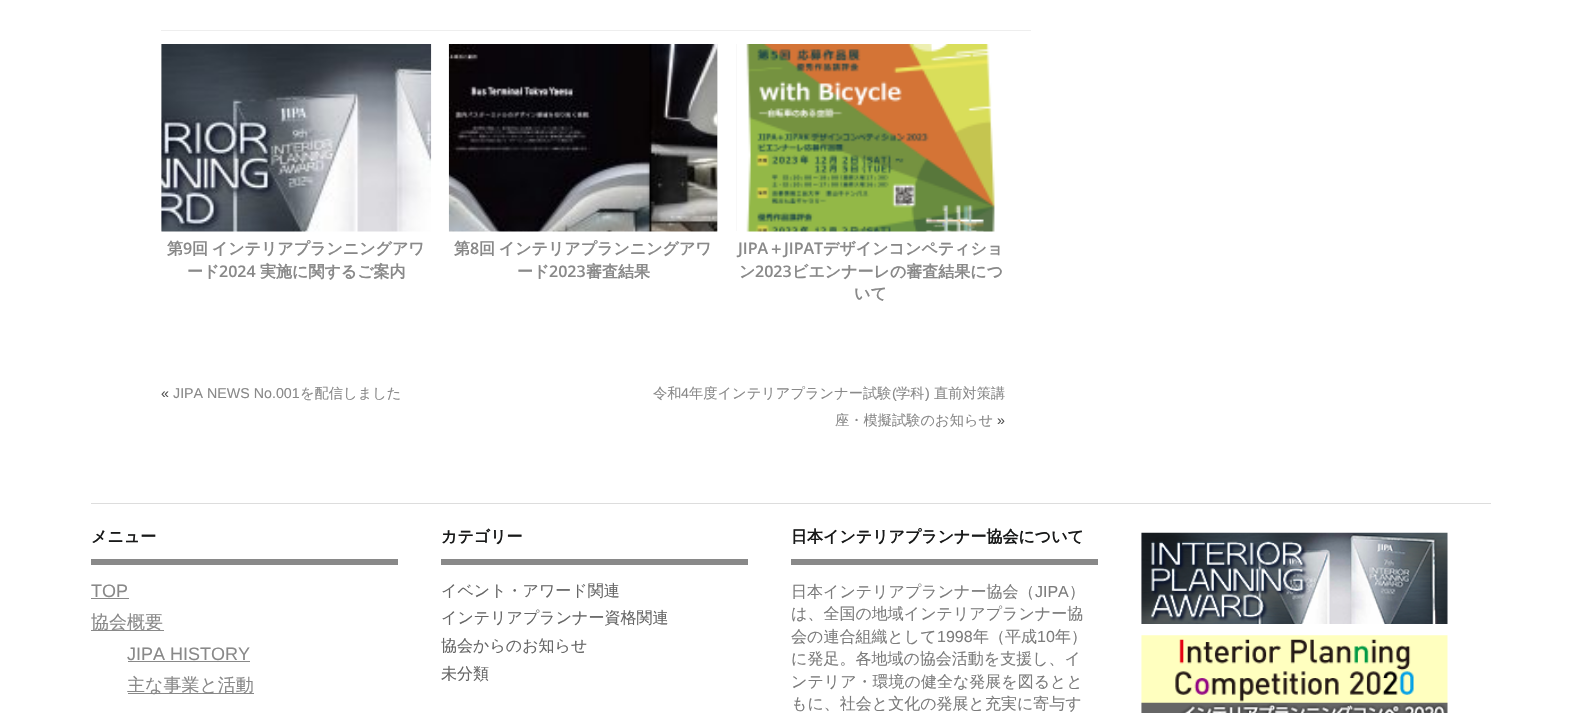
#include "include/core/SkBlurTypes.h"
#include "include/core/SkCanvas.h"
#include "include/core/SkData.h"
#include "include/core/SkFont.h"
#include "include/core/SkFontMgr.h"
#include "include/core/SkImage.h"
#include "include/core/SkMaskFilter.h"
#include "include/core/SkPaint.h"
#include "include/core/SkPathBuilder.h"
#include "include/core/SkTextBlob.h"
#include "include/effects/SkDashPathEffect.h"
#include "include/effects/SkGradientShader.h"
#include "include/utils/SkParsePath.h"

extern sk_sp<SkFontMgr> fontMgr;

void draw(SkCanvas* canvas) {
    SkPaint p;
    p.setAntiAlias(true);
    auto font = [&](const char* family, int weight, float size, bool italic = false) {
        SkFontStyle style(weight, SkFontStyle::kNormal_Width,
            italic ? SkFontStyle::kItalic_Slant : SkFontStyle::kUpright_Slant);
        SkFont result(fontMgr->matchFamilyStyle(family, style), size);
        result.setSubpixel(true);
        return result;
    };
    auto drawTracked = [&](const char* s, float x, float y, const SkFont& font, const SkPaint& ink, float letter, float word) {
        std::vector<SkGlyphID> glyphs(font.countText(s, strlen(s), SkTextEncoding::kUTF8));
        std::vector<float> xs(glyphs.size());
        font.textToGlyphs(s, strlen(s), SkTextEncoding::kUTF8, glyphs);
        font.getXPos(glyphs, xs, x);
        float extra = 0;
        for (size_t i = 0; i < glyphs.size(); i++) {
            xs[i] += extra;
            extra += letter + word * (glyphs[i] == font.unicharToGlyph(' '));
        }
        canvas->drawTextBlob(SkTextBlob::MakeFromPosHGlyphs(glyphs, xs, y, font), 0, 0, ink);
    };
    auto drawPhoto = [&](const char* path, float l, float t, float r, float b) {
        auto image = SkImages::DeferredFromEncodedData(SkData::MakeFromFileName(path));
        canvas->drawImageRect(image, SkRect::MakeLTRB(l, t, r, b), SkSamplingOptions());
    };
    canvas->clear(0xFFFFFFFF);
    p.setColor(0xFFEEEEEE);
    canvas->drawRect(SkRect::MakeLTRB(161, 30, 1031, 31), p);
    canvas->drawRect(SkRect::MakeLTRB(161, 44, 162, 231), p);
    drawPhoto("media/1.png", 161, 44, 432, 232);
    auto font1 = font("WenQuanYi Zen Hei", 700, 16);
    p.setColor(0xFF898989);
    canvas->drawString("第", 167, 254, font1, p);
    auto font2 = font("Open Sans", 600, 16);
    canvas->drawString("9", 183, 254, font2, p);
    drawTracked("回 インテリアプランニングアワ", 192, 254, font1, p, 0, -1);
    canvas->drawString("ード", 187, 277, font1, p);
    canvas->drawString("2024", 219, 277, font2, p);
    canvas->drawString("実施に関するご案内", 260, 277, font1, p);
    p.setColor(0xFFEEEEEE);
    canvas->drawRect(SkRect::MakeLTRB(717, 44, 718, 231), p);
    drawPhoto("media/2.png", 448, 44, 718, 232);
    p.setColor(0xFF898989);
    canvas->drawString("第", 454, 254, font1, p);
    canvas->drawString("8", 470, 254, font2, p);
    drawTracked("回 インテリアプランニングアワ", 479, 254, font1, p, 0, -1);
    canvas->drawString("ード", 517, 277, font1, p);
    canvas->drawString("2023", 549, 277, font2, p);
    canvas->drawString("審査結果", 586, 277, font1, p);
    p.setColor(0xFFEEEEEE);
    canvas->drawRect(SkRect::MakeLTRB(736, 44, 737, 231), p);
    drawPhoto("media/3.png", 736, 44, 1005, 232);
    p.setColor(0xFF898989);
    canvas->drawString("JIPA", 738, 254, font2, p);
    canvas->drawString("＋", 768, 254, font1, p);
    canvas->drawString("JIPAT", 784, 254, font2, p);
    canvas->drawString("デザインコンペティショ", 823, 254, font1, p);
    canvas->drawString("ン", 739, 277, font1, p);
    canvas->drawString("2023", 755, 277, font2, p);
    canvas->drawString("ビエンナーレの審査結果につ", 792, 277, font1, p);
    canvas->drawString("いて", 854, 299, font1, p);
    auto font3 = font("Liberation Sans", 400, 14.25f);
    p.setColor(0xFF555555);
    canvas->drawString("«", 161, 398, font3, p);
    p.setColor(0xFF898989);
    canvas->drawString("JIPA NEWS No.001", 173, 398, font3, p);
    auto font4 = font("WenQuanYi Zen Hei", 500, 14.25f);
    canvas->drawString("を配信しました", 300, 398, font4, p);
    canvas->drawString("令和", 653, 398, font4, p);
    canvas->drawString("4", 681, 398, font3, p);
    canvas->drawString("年度インテリアプランナー試験", 689, 398, font4, p);
    canvas->drawString("(", 892, 398, font3, p);
    canvas->drawString("学科", 896, 398, font4, p);
    canvas->drawString(")", 925, 398, font3, p);
    canvas->drawString("直前対策講", 934, 398, font4, p);
    canvas->drawString("座・模擬試験のお知らせ", 835, 425, font4, p);
    p.setColor(0xFF555555);
    canvas->drawString("»", 997, 425, font3, p);
    p.setColor(0xFFDDDDDD);
    canvas->drawRect(SkRect::MakeLTRB(91, 503, 1491, 504), p);
    p.setColor(0xFF898989);
    canvas->drawRect(SkRect::MakeLTRB(91, 559, 398, 565), p);
    p.setColor(0xFF181919);
    canvas->drawString("メニュー", 91, 542, font1, p);
    auto font5 = font("Liberation Sans", 400, 18);
    p.setColor(0xFF898989);
    canvas->drawString("TOP", 91, 597, font5, p);
    canvas->drawRect(SkRect::MakeLTRB(91, 598, 129, 599), p);
    canvas->drawRect(SkRect::MakeLTRB(91, 630, 164, 631), p);
    auto font6 = font("WenQuanYi Zen Hei", 500, 18);
    canvas->drawString("協会概要", 91, 628, font6, p);
    canvas->drawString("JIPA HISTORY", 127, 660, font5, p);
    canvas->drawRect(SkRect::MakeLTRB(128, 661, 250, 662), p);
    canvas->drawRect(SkRect::MakeLTRB(128, 693, 254, 694), p);
    canvas->drawString("主な事業と活動", 127, 691, font6, p);
    canvas->drawRect(SkRect::MakeLTRB(441, 559, 748, 565), p);
    p.setColor(0xFF181919);
    canvas->drawString("カテゴリー", 441, 542, font1, p);
    auto font7 = font("WenQuanYi Zen Hei", 500, 16);
    p.setColor(0xFF666666);
    {
        const struct { const char* s; float x, y; } items[] = {
            {"イベント・アワード関連", 441, 596},
            {"インテリアプランナー資格関連", 441, 623},
            {"協会からのお知らせ", 441, 651},
            {"未分類", 441, 679},
        };
        for (auto [s, x, y] : items) {
            canvas->drawString(s, x, y, font7, p);
        }
    }
    p.setColor(0xFF898989);
    canvas->drawRect(SkRect::MakeLTRB(791, 559, 1098, 565), p);
    p.setColor(0xFF181919);
    canvas->drawString("日本インテリアプランナー協会について", 791, 542, font1, p);
    p.setColor(0xFF7C7C7C);
    canvas->drawString("日本インテリアプランナー協会（", 791, 597, font7, p);
    auto font8 = font("Liberation Sans", 400, 16);
    canvas->drawString("JIPA", 1035, 597, font8, p);
    {
        const struct { const char* s; float x, y; } items[] = {
            {"）", 1069, 597},
            {"は、全国の地域インテリアプランナー協", 791, 619},
            {"会の連合組織として", 791, 642},
        };
        for (auto [s, x, y] : items) {
            canvas->drawString(s, x, y, font7, p);
        }
    }
    canvas->drawString("1998", 937, 642, font8, p);
    canvas->drawString("年（平成", 973, 642, font7, p);
    canvas->drawString("10", 1037, 642, font8, p);
    {
        const struct { const char* s; float x, y; } items[] = {
            {"年）", 1055, 642},
            {"に発足。各地域の協会活動を支援し、イ", 791, 664},
            {"ンテリア・環境の健全な発展を図るとと", 791, 687},
            {"もに、社会と文化の発展と充実に寄与す", 791, 709},
        };
        for (auto [s, x, y] : items) {
            canvas->drawString(s, x, y, font7, p);
        }
    }
    drawPhoto("media/4.png", 1141, 532, 1448, 624);
    drawPhoto("media/5.png", 1141, 635, 1448, 713);
}
